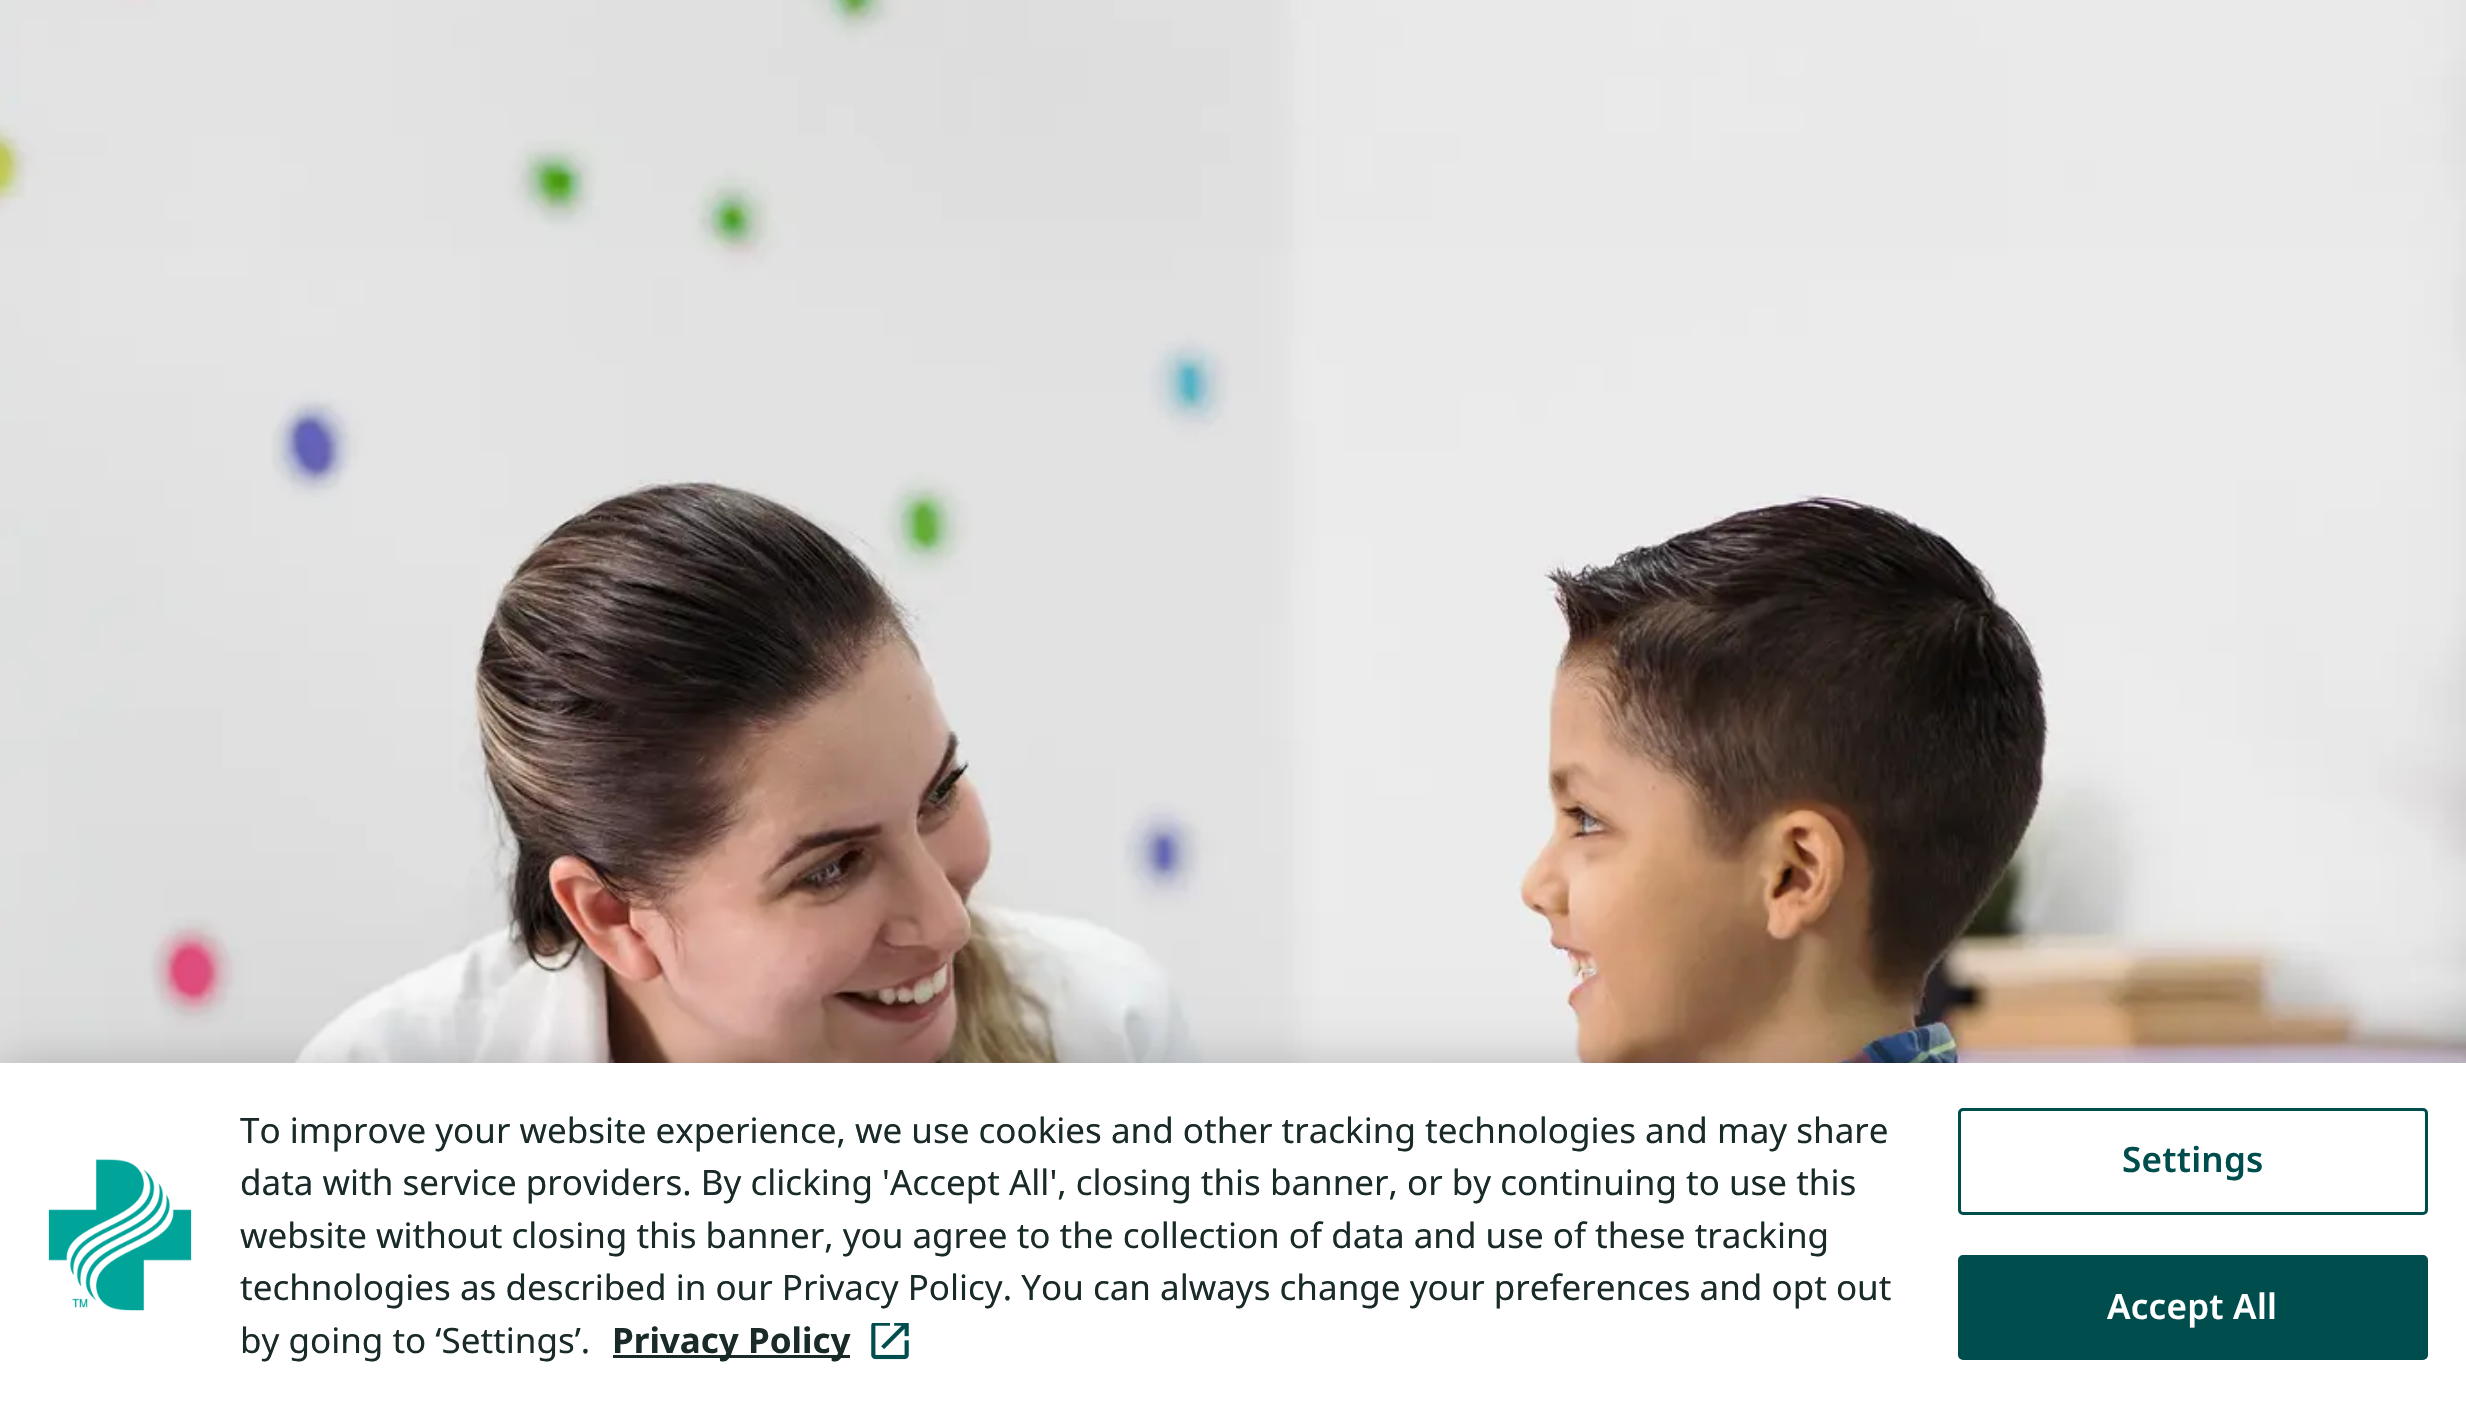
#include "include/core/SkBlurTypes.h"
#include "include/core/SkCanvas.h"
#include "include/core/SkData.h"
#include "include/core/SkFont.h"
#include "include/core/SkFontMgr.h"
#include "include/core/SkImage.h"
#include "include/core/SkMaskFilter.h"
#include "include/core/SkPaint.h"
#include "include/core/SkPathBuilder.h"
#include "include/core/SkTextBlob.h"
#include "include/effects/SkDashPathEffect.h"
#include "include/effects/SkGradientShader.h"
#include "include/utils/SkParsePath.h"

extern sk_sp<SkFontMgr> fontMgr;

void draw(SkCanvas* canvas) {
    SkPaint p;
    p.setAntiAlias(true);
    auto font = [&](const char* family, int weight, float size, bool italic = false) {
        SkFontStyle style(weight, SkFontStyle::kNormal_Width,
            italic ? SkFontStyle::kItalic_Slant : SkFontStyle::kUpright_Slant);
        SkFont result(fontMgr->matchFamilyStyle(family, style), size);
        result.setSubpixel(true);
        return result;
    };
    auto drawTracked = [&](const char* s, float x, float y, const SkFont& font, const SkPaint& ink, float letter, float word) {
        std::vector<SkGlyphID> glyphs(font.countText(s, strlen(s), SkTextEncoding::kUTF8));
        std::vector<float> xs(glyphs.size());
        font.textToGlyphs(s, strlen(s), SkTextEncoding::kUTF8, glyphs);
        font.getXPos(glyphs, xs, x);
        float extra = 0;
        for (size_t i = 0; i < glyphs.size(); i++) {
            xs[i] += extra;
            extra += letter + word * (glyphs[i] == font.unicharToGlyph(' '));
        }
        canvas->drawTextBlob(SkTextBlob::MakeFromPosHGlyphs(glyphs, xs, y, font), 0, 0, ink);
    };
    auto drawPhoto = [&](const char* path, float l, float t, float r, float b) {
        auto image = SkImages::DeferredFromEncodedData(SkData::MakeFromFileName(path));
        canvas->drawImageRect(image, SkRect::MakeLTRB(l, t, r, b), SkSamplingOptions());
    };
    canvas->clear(0xFFFFFFFF);
    drawPhoto("media/1.png", 0, 0, 2466, 1063);
    p.setColor(0x33000000);
    p.setMaskFilter(SkMaskFilter::MakeBlur(kNormal_SkBlurStyle, 22.5f));
    canvas->drawRect(SkRect::MakeLTRB(0, 1063, 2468, 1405), p);
    p.setMaskFilter(nullptr);
    p.setColor(0xFFFFFFFF);
    canvas->drawRect(SkRect::MakeLTRB(0, 1063, 2466, 1403), p);
    drawPhoto("media/2.png", 48, 1159, 192, 1311);
    auto font1 = font("Noto Sans", 400, 35);
    p.setColor(0xFF192A29);
    {
        const struct { const char* s; float x, y; } items[] = {
            {"To improve your website experience, we use cookies and other tracking technologies and may share", 240, 1143},
            {"data with service providers. By clicking 'Accept All', closing this banner, or by continuing to use this", 240, 1195},
            {"website without closing this banner, you agree to the collection of data and use of these tracking", 240, 1248},
            {"technologies as described in our Privacy Policy. You can always change your preferences and opt out", 240, 1300},
            {"by going to ‘Settings’.", 240, 1353},
        };
        for (auto [s, x, y] : items) {
            canvas->drawString(s, x, y, font1, p);
        }
    }
    canvas->drawRect(SkRect::MakeLTRB(613, 1355, 850, 1358), p);
    auto font2 = font("Noto Sans", 700, 35);
    canvas->drawString("Privacy Policy", 612, 1353, font2, p);
    drawPhoto("media/3.png", 871, 1323, 909, 1360);
    p.setStyle(SkPaint::kStroke_Style);
    p.setStrokeWidth(3);
    p.setColor(0xFF004D4D);
    canvas->drawRoundRect(SkRect::MakeLTRB(1959.5f, 1109.5f, 2426.5f, 1213.5f), 3.5f, 3.5f, p);
    auto font3 = font("Noto Sans", 600, 35);
    p.setStyle(SkPaint::kFill_Style);
    drawTracked("Settings", 2122, 1172, font3, p, 0.25f, 0);
    canvas->drawRoundRect(SkRect::MakeLTRB(1959.5f, 1256.5f, 2426.5f, 1358.5f), 3.5f, 3.5f, p);
    p.setStyle(SkPaint::kStroke_Style);
    canvas->drawRoundRect(SkRect::MakeLTRB(1959.5f, 1256.5f, 2426.5f, 1358.5f), 3.5f, 3.5f, p);
    p.setStyle(SkPaint::kFill_Style);
    p.setColor(0xFFFFFFFF);
    drawTracked("Accept All", 2107, 1319, font3, p, 0.25f, 0);
}
